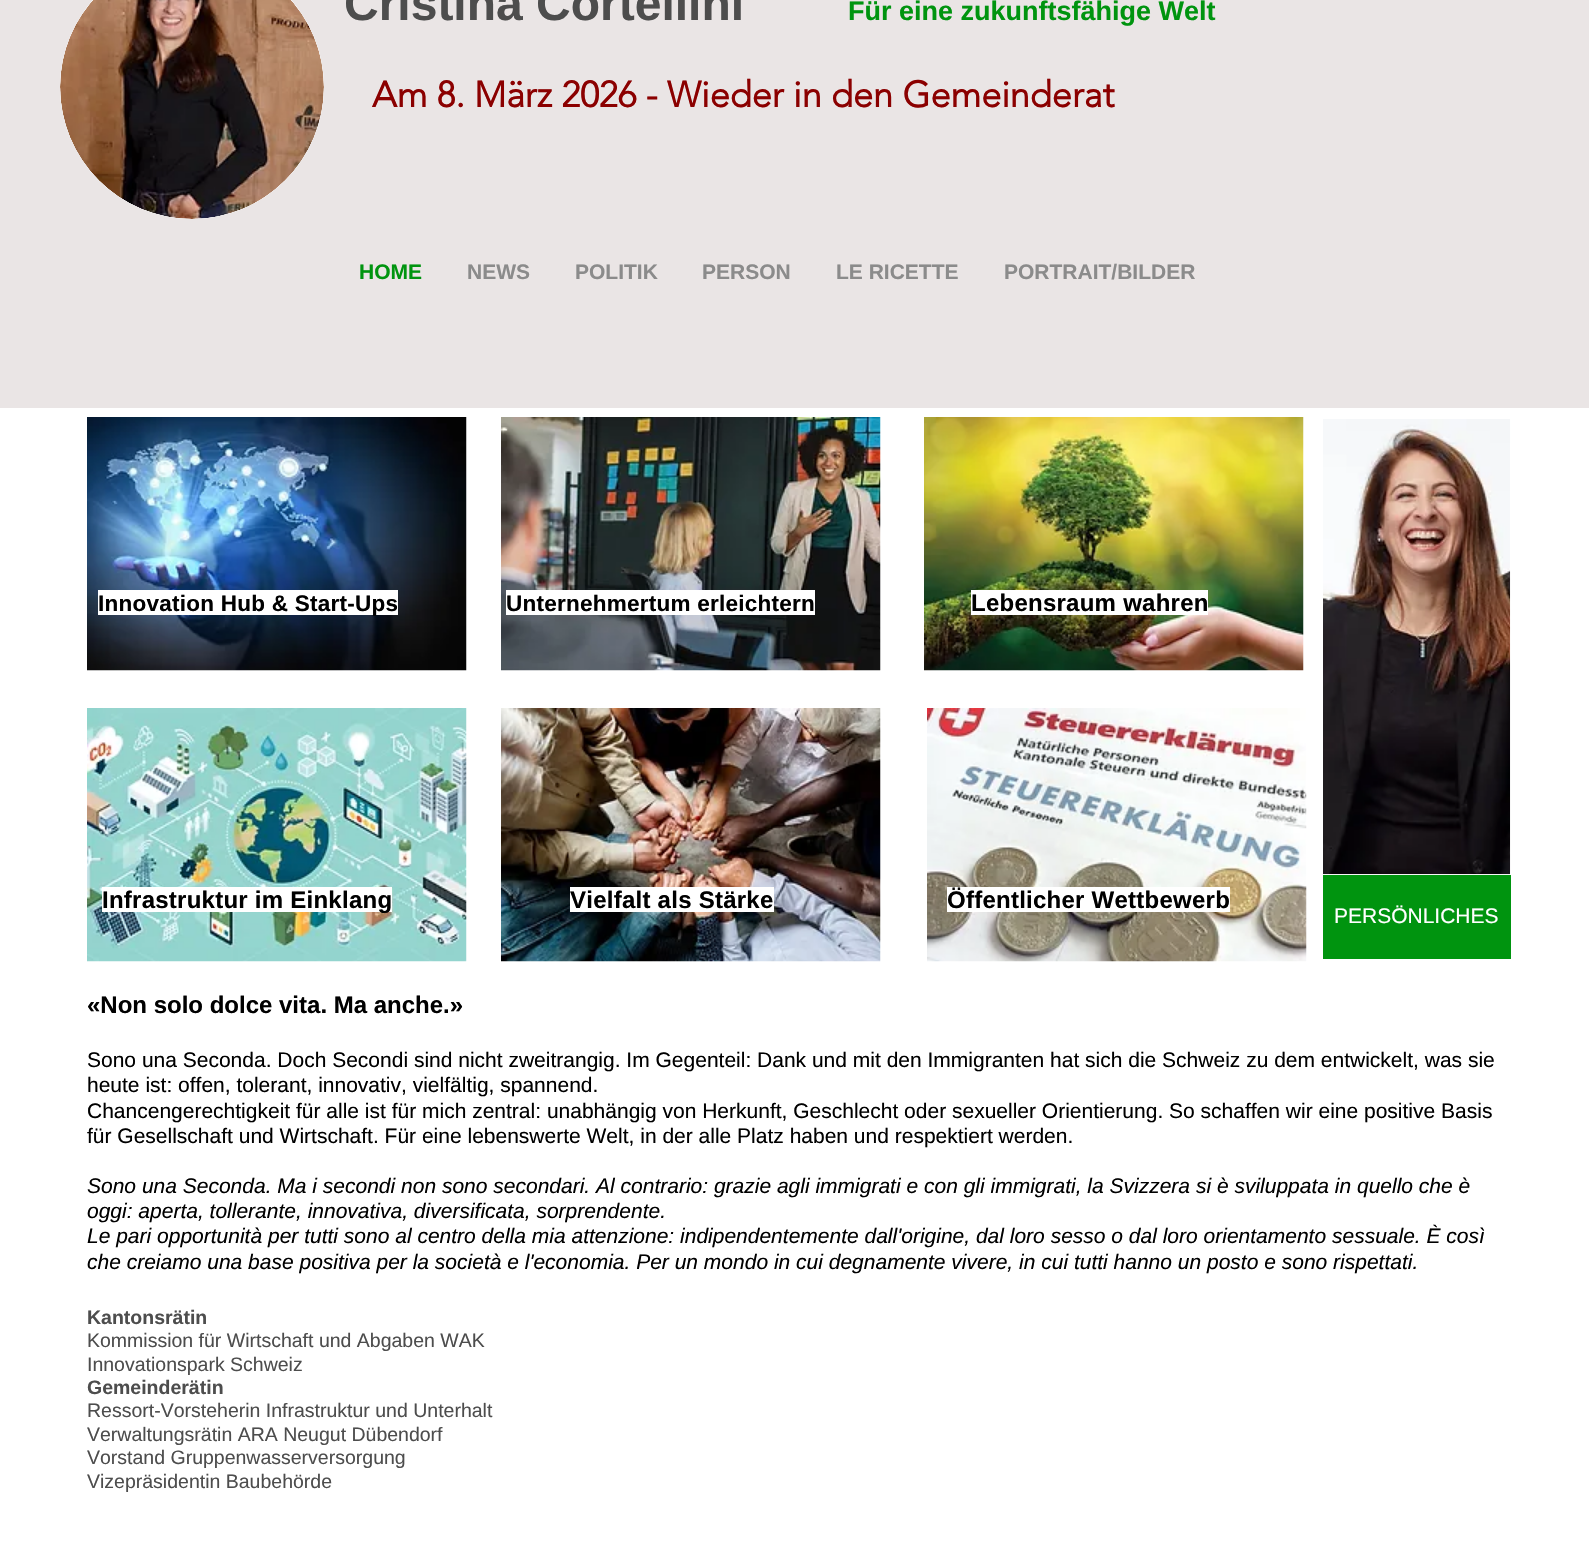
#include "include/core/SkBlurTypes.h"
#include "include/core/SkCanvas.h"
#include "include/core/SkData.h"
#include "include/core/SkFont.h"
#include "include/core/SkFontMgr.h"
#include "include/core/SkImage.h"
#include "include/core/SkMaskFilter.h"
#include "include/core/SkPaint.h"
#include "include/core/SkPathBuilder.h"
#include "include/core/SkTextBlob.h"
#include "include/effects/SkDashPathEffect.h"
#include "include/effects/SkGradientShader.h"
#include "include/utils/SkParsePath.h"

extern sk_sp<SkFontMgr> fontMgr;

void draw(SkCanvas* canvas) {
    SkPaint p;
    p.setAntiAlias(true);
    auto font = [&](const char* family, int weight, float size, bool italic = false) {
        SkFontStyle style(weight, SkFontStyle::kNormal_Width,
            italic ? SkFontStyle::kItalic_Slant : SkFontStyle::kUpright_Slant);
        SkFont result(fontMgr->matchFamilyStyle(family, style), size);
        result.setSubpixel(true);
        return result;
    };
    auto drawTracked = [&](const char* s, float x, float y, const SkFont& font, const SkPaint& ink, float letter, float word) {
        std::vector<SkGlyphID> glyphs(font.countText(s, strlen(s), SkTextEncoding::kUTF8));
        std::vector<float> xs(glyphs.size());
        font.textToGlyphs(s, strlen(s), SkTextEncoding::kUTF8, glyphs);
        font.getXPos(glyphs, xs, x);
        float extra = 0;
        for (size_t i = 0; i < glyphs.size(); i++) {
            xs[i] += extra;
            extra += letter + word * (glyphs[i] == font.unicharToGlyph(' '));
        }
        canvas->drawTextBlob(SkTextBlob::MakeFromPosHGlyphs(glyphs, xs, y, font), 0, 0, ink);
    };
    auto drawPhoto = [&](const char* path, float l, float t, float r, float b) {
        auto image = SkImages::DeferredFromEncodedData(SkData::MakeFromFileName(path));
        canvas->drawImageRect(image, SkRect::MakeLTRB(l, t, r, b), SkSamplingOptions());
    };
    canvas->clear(0xFFFFFFFF);
    p.setColor(0xFFEAE5E5);
    canvas->drawRect(SkRect::MakeLTRB(0, 0, 1589, 408), p);
    p.setColor(0xFFFFFFFF);
    canvas->drawCircle(192, 87, 132, p);
    drawPhoto("media/1.png", 60, 0, 324, 219);
    auto font1 = font("Liberation Sans", 700, 48);
    p.setColor(0xFF4D4D4D);
    canvas->drawString("Cristina Cortellini", 344, 20, font1, p);
    auto font2 = font("Liberation Sans", 700, 27);
    p.setColor(0xFF00940F);
    canvas->drawString("Für eine zukunftsfähige Welt", 848, 20, font2, p);
    auto font3 = font("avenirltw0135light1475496", 700, 36);
    p.setColor(0xFF8B0000);
    canvas->drawString("Am 8. März 2026 - Wieder in den Gemeinderat", 372, 107, font3, p);
    auto font4 = font("Liberation Sans", 700, 21);
    p.setColor(0xFF00940F);
    canvas->drawString("HOME", 359, 279, font4, p);
    p.setColor(0xFF8B8B8B);
    {
        const struct { const char* s; float x, y; } items[] = {
            {"NEWS", 467, 279},
            {"POLITIK", 575, 279},
            {"PERSON", 702, 279},
            {"LE RICETTE", 836, 279},
            {"PORTRAIT/BILDER", 1004, 279},
        };
        for (auto [s, x, y] : items) {
            canvas->drawString(s, x, y, font4, p);
        }
    }
    drawPhoto("media/2.png", 87, 417, 467, 671);
    p.setColor(0xFFFFFFFF);
    canvas->drawRect(SkRect::MakeLTRB(98, 590, 398, 615), p);
    auto font5 = font("Liberation Sans", 700, 22.5f);
    p.setColor(0xFF000000);
    drawTracked("Innovation Hub & Start-Ups", 98, 611, font5, p, 0.25f, 0);
    drawPhoto("media/3.png", 501, 417, 881, 671);
    p.setColor(0xFFFFFFFF);
    canvas->drawRect(SkRect::MakeLTRB(506, 590, 815, 615), p);
    p.setColor(0xFF000000);
    drawTracked("Unternehmertum erleichtern", 506, 611, font5, p, 0.25f, 0);
    drawPhoto("media/4.png", 924, 417, 1304, 671);
    p.setColor(0xFFFFFFFF);
    canvas->drawRect(SkRect::MakeLTRB(971, 590, 1208, 615), p);
    auto font6 = font("Liberation Sans", 700, 24);
    p.setColor(0xFF000000);
    drawTracked("Lebensraum wahren", 971, 611, font6, p, 0.25f, 0);
    drawPhoto("media/5.png", 87, 708, 467, 962);
    p.setColor(0xFFFFFFFF);
    canvas->drawRect(SkRect::MakeLTRB(102, 887, 392, 912), p);
    p.setColor(0xFF000000);
    drawTracked("Infrastruktur im Einklang", 102, 908, font6, p, 0.25f, 0);
    drawPhoto("media/6.png", 501, 708, 881, 962);
    p.setColor(0xFFFFFFFF);
    canvas->drawRect(SkRect::MakeLTRB(570, 887, 774, 912), p);
    p.setColor(0xFF000000);
    drawTracked("Vielfalt als Stärke", 570, 908, font6, p, 0.25f, 0);
    drawPhoto("media/7.png", 927, 708, 1307, 962);
    p.setColor(0xFFFFFFFF);
    canvas->drawRect(SkRect::MakeLTRB(947, 887, 1230, 912), p);
    p.setColor(0xFF000000);
    drawTracked("Öffentlicher Wettbewerb", 947, 908, font6, p, 0.25f, 0);
    drawPhoto("media/8.png", 1323, 419, 1511, 875);
    p.setColor(0xFF00940F);
    canvas->drawRect(SkRect::MakeLTRB(1323, 875, 1511, 959), p);
    auto font7 = font("Liberation Sans", 400, 21);
    p.setColor(0xFFFFFFFF);
    canvas->drawString("PERSÖNLICHES", 1334, 923, font7, p);
    p.setColor(0xFF000000);
    canvas->drawString("«Non solo dolce vita. Ma anche.»", 87, 1013, font6, p);
    {
        const struct { const char* s; float x, y; } items[] = {
            {"Sono una Seconda. Doch Secondi sind nicht zweitrangig. Im Gegenteil: Dank und mit den Immigranten hat sich die Schweiz zu dem entwickelt, was sie", 87, 1067},
            {"heute ist: offen, tolerant, innovativ, vielfältig, spannend.", 87, 1092},
            {"Chancengerechtigkeit für alle ist für mich zentral: unabhängig von Herkunft, Geschlecht oder sexueller Orientierung. So schaffen wir eine positive Basis", 87, 1118},
            {"für Gesellschaft und Wirtschaft. Für eine lebenswerte Welt, in der alle Platz haben und respektiert werden.", 87, 1143},
        };
        for (auto [s, x, y] : items) {
            canvas->drawString(s, x, y, font7, p);
        }
    }
    auto font8 = font("Liberation Sans", 400, 21, true);
    {
        const struct { const char* s; float x, y; } items[] = {
            {"Sono una Seconda. Ma i secondi non sono secondari. Al contrario: grazie agli immigrati e con gli immigrati, la Svizzera si è sviluppata in quello che è", 87, 1193},
            {"oggi: aperta, tollerante, innovativa, diversificata, sorprendente.", 87, 1218},
            {"Le pari opportunità per tutti sono al centro della mia attenzione: indipendentemente dall'origine, dal loro sesso o dal loro orientamento sessuale. È così", 87, 1243},
            {"che creiamo una base positiva per la società e l'economia. Per un mondo in cui degnamente vivere, in cui tutti hanno un posto e sono rispettati.", 87, 1269},
        };
        for (auto [s, x, y] : items) {
            canvas->drawString(s, x, y, font8, p);
        }
    }
    auto font9 = font("Liberation Sans", 700, 19.5f);
    p.setColor(0xFF4D4D4D);
    canvas->drawString("Kantonsrätin", 87, 1324, font9, p);
    auto font10 = font("Liberation Sans", 400, 19.5f);
    canvas->drawString("Kommission für Wirtschaft und Abgaben WAK", 87, 1347, font10, p);
    canvas->drawString("Innovationspark Schweiz", 87, 1371, font10, p);
    canvas->drawString("Gemeinderätin", 87, 1394, font9, p);
    {
        const struct { const char* s; float x, y; } items[] = {
            {"Ressort-Vorsteherin Infrastruktur und Unterhalt", 87, 1417},
            {"Verwaltungsrätin ARA Neugut Dübendorf", 87, 1441},
            {"Vorstand Gruppenwasserversorgung", 87, 1464},
            {"Vizepräsidentin Baubehörde", 87, 1488},
        };
        for (auto [s, x, y] : items) {
            canvas->drawString(s, x, y, font10, p);
        }
    }
}
